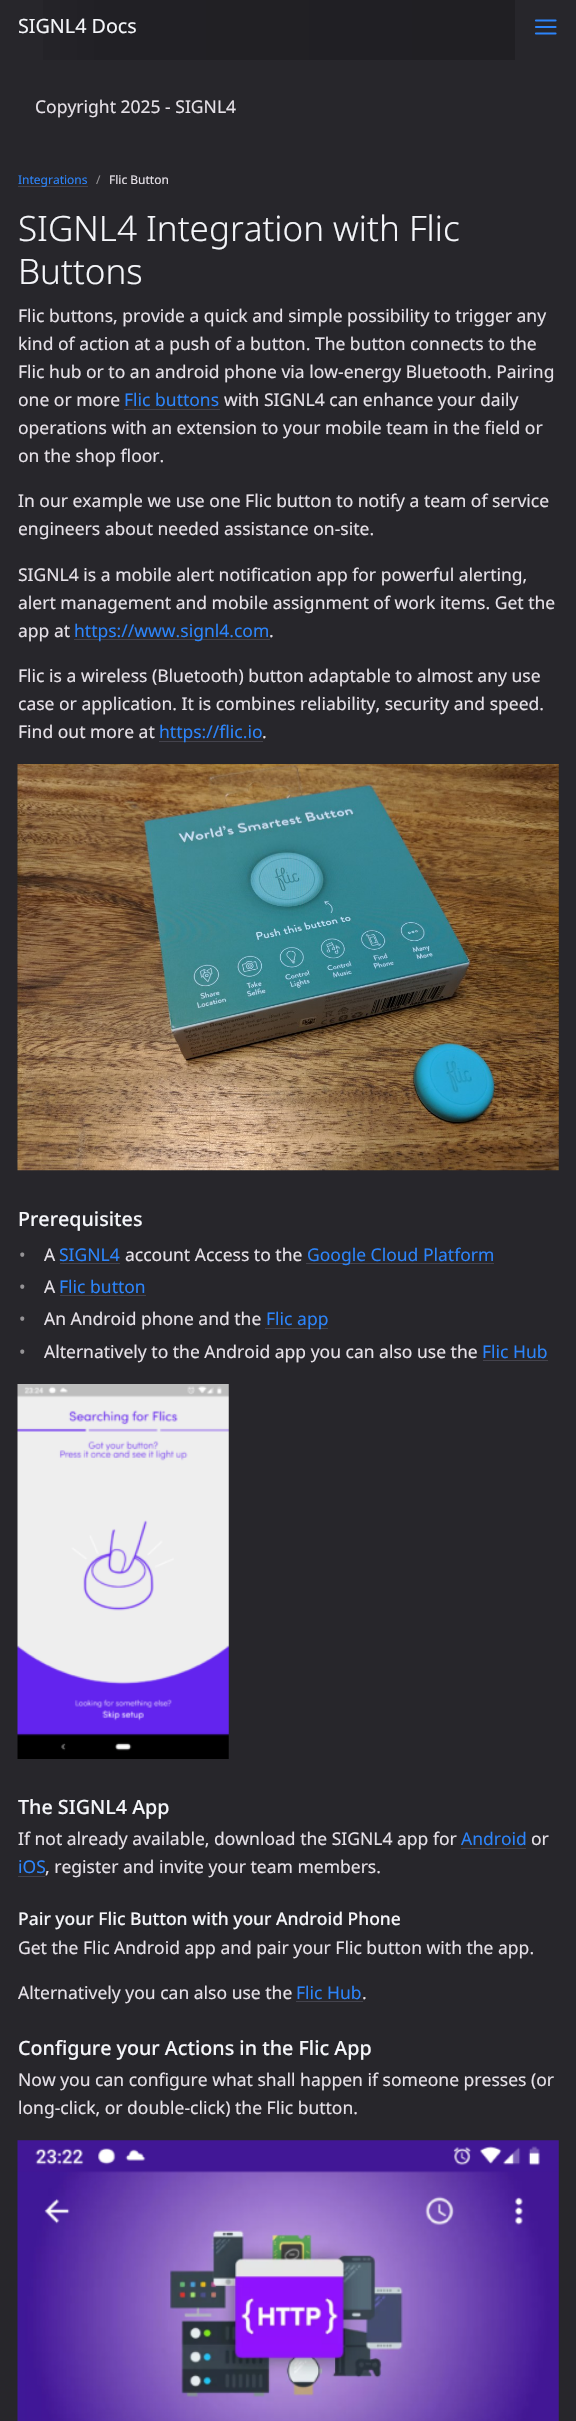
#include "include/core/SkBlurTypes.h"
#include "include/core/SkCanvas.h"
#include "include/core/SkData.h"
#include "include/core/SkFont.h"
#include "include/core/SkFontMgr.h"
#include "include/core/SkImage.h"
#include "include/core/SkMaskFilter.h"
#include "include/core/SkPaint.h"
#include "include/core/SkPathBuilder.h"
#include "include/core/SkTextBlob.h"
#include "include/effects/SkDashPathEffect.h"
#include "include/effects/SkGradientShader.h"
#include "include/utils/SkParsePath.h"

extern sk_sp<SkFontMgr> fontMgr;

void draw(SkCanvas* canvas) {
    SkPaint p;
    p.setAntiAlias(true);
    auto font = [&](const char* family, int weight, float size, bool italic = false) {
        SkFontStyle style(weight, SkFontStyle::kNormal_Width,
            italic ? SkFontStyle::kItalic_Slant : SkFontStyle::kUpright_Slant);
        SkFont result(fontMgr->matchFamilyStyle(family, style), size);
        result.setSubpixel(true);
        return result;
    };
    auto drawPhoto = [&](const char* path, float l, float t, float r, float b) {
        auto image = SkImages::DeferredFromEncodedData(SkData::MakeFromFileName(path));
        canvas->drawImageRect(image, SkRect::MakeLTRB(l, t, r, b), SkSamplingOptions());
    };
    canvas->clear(0xFF27262B);
    {
        const SkColor colors[] = {0xFF201F23, 0xFF212025, 0xFF27262B};
        const float stops[] = {0, 0.8f, 1};
        const SkPoint ends[] = {{515, 27}, {0, 27}};
        p.setShader(SkGradientShader::MakeLinear(ends, colors, stops, 3, SkTileMode::kClamp));
        p.setAlpha(255);
    }
    canvas->drawRect(SkRect::MakeLTRB(43, 0, 515, 60), p);
    auto font1 = font("Noto Sans", 400, 19.7f);
    p.setShader(nullptr);
    p.setColor(0xFFF5F6FA);
    canvas->drawString("SIGNL4 Docs", 18, 33, font1, p);
    p.setStyle(SkPaint::kStroke_Style);
    p.setStrokeWidth(2.2f);
    p.setStrokeCap(SkPaint::kRound_Cap);
    p.setStrokeJoin(SkPaint::kRound_Join);
    p.setColor(0xFF2C84FA);
    canvas->drawPath(SkPathBuilder().moveTo(536, 27).lineTo(555.5f, 27).moveTo(536, 20.5f).lineTo(555.5f, 20.5f).moveTo(536, 33.5f).lineTo(555.5f, 33.5f).detach(), p);
    auto font2 = font("Noto Sans", 400, 17.5f);
    p.setStyle(SkPaint::kFill_Style);
    p.setColor(0xFFE6E1E8);
    canvas->drawString("Copyright 2025 - SIGNL4", 35, 113, font2, p);
    p.setColor(0xFF44434D);
    canvas->drawRect(SkRect::MakeLTRB(18, 186, 88, 187), p);
    auto font3 = font("Noto Sans", 400, 12);
    p.setColor(0xFF2C84FA);
    canvas->drawString("Integrations", 18, 184, font3, p);
    p.setColor(0xFF959396);
    canvas->drawString("/", 96, 184, font3, p);
    p.setColor(0xFFE6E1E8);
    canvas->drawString("Flic Button", 109, 184, font3, p);
    auto font4 = font("Noto Sans", 300, 35);
    p.setColor(0xFFF5F6FA);
    canvas->drawString("SIGNL4 Integration with Flic", 18, 241, font4, p);
    canvas->drawString("Buttons", 18, 284, font4, p);
    p.setColor(0xFFE6E1E8);
    {
        const struct { const char* s; float x, y; } items[] = {
            {"Flic buttons, provide a quick and simple possibility to trigger any", 18, 322},
            {"kind of action at a push of a button. The button connects to the", 18, 350},
            {"Flic hub or to an android phone via low-energy Bluetooth. Pairing", 18, 378},
            {"one or more", 18, 406},
        };
        for (auto [s, x, y] : items) {
            canvas->drawString(s, x, y, font2, p);
        }
    }
    p.setColor(0xFF2C84FA);
    canvas->drawString("Flic buttons", 124, 406, font2, p);
    p.setColor(0xFF44434D);
    canvas->drawRect(SkRect::MakeLTRB(124, 409, 220, 410), p);
    p.setColor(0xFFE6E1E8);
    {
        const struct { const char* s; float x, y; } items[] = {
            {"with SIGNL4 can enhance your daily", 224, 406},
            {"operations with an extension to your mobile team in the field or", 18, 434},
            {"on the shop floor.", 18, 462},
            {"In our example we use one Flic button to notify a team of service", 18, 507},
            {"engineers about needed assistance on-site.", 18, 535},
            {"SIGNL4 is a mobile alert notification app for powerful alerting,", 18, 581},
            {"alert management and mobile assignment of work items. Get the", 18, 609},
            {"app at", 18, 637},
        };
        for (auto [s, x, y] : items) {
            canvas->drawString(s, x, y, font2, p);
        }
    }
    p.setColor(0xFF44434D);
    canvas->drawRect(SkRect::MakeLTRB(74, 639, 270, 640), p);
    p.setColor(0xFF2C84FA);
    canvas->drawString("https://www.signl4.com", 74, 637, font2, p);
    p.setColor(0xFFE6E1E8);
    {
        const struct { const char* s; float x, y; } items[] = {
            {".", 269, 637},
            {"Flic is a wireless (Bluetooth) button adaptable to almost any use", 18, 682},
            {"case or application. It is combines reliability, security and speed.", 18, 710},
            {"Find out more at", 18, 738},
        };
        for (auto [s, x, y] : items) {
            canvas->drawString(s, x, y, font2, p);
        }
    }
    p.setColor(0xFF44434D);
    canvas->drawRect(SkRect::MakeLTRB(159, 741, 263, 742), p);
    p.setColor(0xFF2C84FA);
    canvas->drawString("https://flic.io", 159, 738, font2, p);
    p.setColor(0xFFE6E1E8);
    canvas->drawString(".", 262, 738, font2, p);
    drawPhoto("media/1.png", 17, 764, 559, 1171);
    auto font5 = font("Noto Sans", 500, 19.7f);
    p.setColor(0xFFF5F6FA);
    canvas->drawString("Prerequisites", 18, 1226, font5, p);
    p.setColor(0xFF959396);
    canvas->drawString("•", 19, 1261, font2, p);
    p.setColor(0xFFE6E1E8);
    canvas->drawString("A", 44, 1261, font2, p);
    p.setColor(0xFF2C84FA);
    canvas->drawString("SIGNL4", 59, 1261, font2, p);
    p.setColor(0xFF44434D);
    canvas->drawRect(SkRect::MakeLTRB(60, 1263, 120, 1264), p);
    p.setColor(0xFFE6E1E8);
    canvas->drawString("account Access to the", 125, 1261, font2, p);
    p.setColor(0xFF44434D);
    canvas->drawRect(SkRect::MakeLTRB(306, 1263, 494, 1264), p);
    p.setColor(0xFF2C84FA);
    canvas->drawString("Google Cloud Platform", 307, 1261, font2, p);
    p.setColor(0xFF959396);
    canvas->drawString("•", 19, 1293, font2, p);
    p.setColor(0xFFE6E1E8);
    canvas->drawString("A", 44, 1293, font2, p);
    p.setColor(0xFF2C84FA);
    canvas->drawString("Flic button", 59, 1293, font2, p);
    p.setColor(0xFF44434D);
    canvas->drawRect(SkRect::MakeLTRB(60, 1295, 146, 1296), p);
    p.setColor(0xFF959396);
    canvas->drawString("•", 19, 1325, font2, p);
    p.setColor(0xFFE6E1E8);
    canvas->drawString("An Android phone and the", 44, 1325, font2, p);
    p.setColor(0xFF44434D);
    canvas->drawRect(SkRect::MakeLTRB(265, 1328, 328, 1329), p);
    p.setColor(0xFF2C84FA);
    canvas->drawString("Flic app", 266, 1325, font2, p);
    p.setColor(0xFF959396);
    canvas->drawString("•", 19, 1358, font2, p);
    p.setColor(0xFFE6E1E8);
    canvas->drawString("Alternatively to the Android app you can also use the", 44, 1358, font2, p);
    p.setColor(0xFF2C84FA);
    canvas->drawString("Flic Hub", 482, 1358, font2, p);
    p.setColor(0xFF44434D);
    canvas->drawRect(SkRect::MakeLTRB(483, 1360, 548, 1361), p);
    drawPhoto("media/2.png", 17, 1384, 229, 1759);
    p.setColor(0xFFF5F6FA);
    canvas->drawString("The SIGNL4 App", 18, 1814, font5, p);
    p.setColor(0xFFE6E1E8);
    canvas->drawString("If not already available, download the SIGNL4 app for", 18, 1845, font2, p);
    p.setColor(0xFF2C84FA);
    canvas->drawString("Android", 461, 1845, font2, p);
    p.setColor(0xFF44434D);
    canvas->drawRect(SkRect::MakeLTRB(461, 1848, 526, 1849), p);
    p.setColor(0xFFE6E1E8);
    canvas->drawString("or", 531, 1845, font2, p);
    p.setColor(0xFF2C84FA);
    canvas->drawString("iOS", 18, 1873, font2, p);
    p.setColor(0xFF44434D);
    canvas->drawRect(SkRect::MakeLTRB(18, 1876, 45, 1877), p);
    p.setColor(0xFFE6E1E8);
    canvas->drawString(", register and invite your team members.", 45, 1873, font2, p);
    auto font6 = font("Noto Sans", 500, 17.5f);
    p.setColor(0xFFF5F6FA);
    canvas->drawString("Pair your Flic Button with your Android Phone", 18, 1925, font6, p);
    p.setColor(0xFFE6E1E8);
    canvas->drawString("Get the Flic Android app and pair your Flic button with the app.", 18, 1954, font2, p);
    canvas->drawString("Alternatively you can also use the", 18, 1999, font2, p);
    p.setColor(0xFF2C84FA);
    canvas->drawString("Flic Hub", 296, 1999, font2, p);
    p.setColor(0xFF44434D);
    canvas->drawRect(SkRect::MakeLTRB(296, 2001, 363, 2002), p);
    p.setColor(0xFFE6E1E8);
    canvas->drawString(".", 362, 1999, font2, p);
    p.setColor(0xFFF5F6FA);
    canvas->drawString("Configure your Actions in the Flic App", 18, 2055, font5, p);
    p.setColor(0xFFE6E1E8);
    canvas->drawString("Now you can configure what shall happen if someone presses (or", 18, 2086, font2, p);
    canvas->drawString("long-click, or double-click) the Flic button.", 18, 2114, font2, p);
    drawPhoto("media/3.png", 17, 2140, 559, 2421);
}
